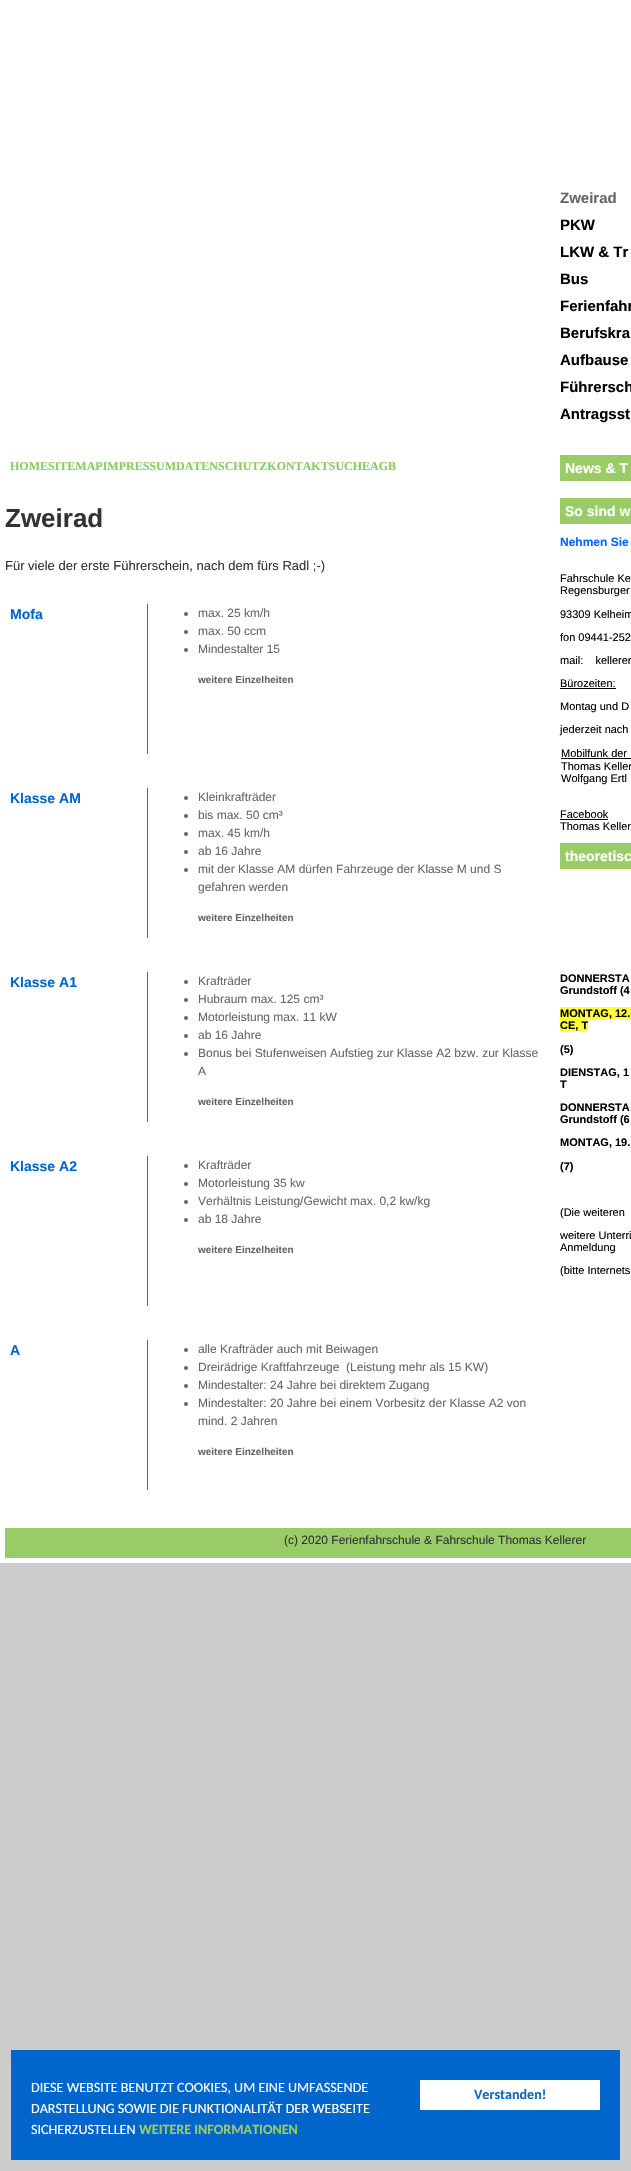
#include "include/core/SkBlurTypes.h"
#include "include/core/SkCanvas.h"
#include "include/core/SkData.h"
#include "include/core/SkFont.h"
#include "include/core/SkFontMgr.h"
#include "include/core/SkImage.h"
#include "include/core/SkMaskFilter.h"
#include "include/core/SkPaint.h"
#include "include/core/SkPathBuilder.h"
#include "include/core/SkTextBlob.h"
#include "include/effects/SkDashPathEffect.h"
#include "include/effects/SkGradientShader.h"
#include "include/utils/SkParsePath.h"

extern sk_sp<SkFontMgr> fontMgr;

void draw(SkCanvas* canvas) {
    SkPaint p;
    p.setAntiAlias(true);
    auto font = [&](const char* family, int weight, float size, bool italic = false) {
        SkFontStyle style(weight, SkFontStyle::kNormal_Width,
            italic ? SkFontStyle::kItalic_Slant : SkFontStyle::kUpright_Slant);
        SkFont result(fontMgr->matchFamilyStyle(family, style), size);
        result.setSubpixel(true);
        return result;
    };
    canvas->clear(0xFFCCCCCC);
    p.setColor(0xFFFFFFFF);
    canvas->drawRect(SkRect::MakeLTRB(0, 0, 631, 1563), p);
    auto font1 = font("Liberation Sans", 700, 15);
    p.setColor(0xFF666666);
    canvas->drawString("Zweirad", 560, 203, font1, p);
    p.setColor(0xFF000000);
    {
        const struct { const char* s; float x, y; } items[] = {
            {"PKW", 560, 230},
            {"LKW & Tr", 560, 257},
            {"Bus", 560, 284},
            {"Ferienfahr", 560, 311},
            {"Berufskra", 560, 338},
            {"Aufbause", 560, 365},
            {"Führersch", 560, 392},
            {"Antragsst", 560, 419},
        };
        for (auto [s, x, y] : items) {
            canvas->drawString(s, x, y, font1, p);
        }
    }
    auto font2 = font("Liberation Serif", 700, 12);
    p.setColor(0xFF88CC66);
    canvas->drawString("HOMESITEMAPIMPRESSUMDATENSCHUTZKONTAKTSUCHEAGB", 10, 470, font2, p);
    auto font3 = font("Liberation Sans", 700, 26);
    p.setColor(0xFF333333);
    canvas->drawString("Zweirad", 5, 527, font3, p);
    auto font4 = font("Liberation Sans", 400, 13);
    canvas->drawString("Für viele der erste Führerschein, nach dem fürs Radl ;-)", 5, 570, font4, p);
    p.setColor(0xFF666666);
    canvas->drawRect(SkRect::MakeLTRB(147, 604, 148, 754), p);
    auto font5 = font("Liberation Sans", 700, 14);
    p.setColor(0xFF0066CC);
    canvas->drawString("Mofa", 10, 619, font5, p);
    p.setColor(0xFF666666);
    canvas->drawCircle(186, 614, 2, p);
    auto font6 = font("Liberation Sans", 400, 12);
    canvas->drawString("max. 25 km/h", 198, 617, font6, p);
    canvas->drawCircle(186, 632, 2, p);
    canvas->drawString("max. 50 ccm", 198, 635, font6, p);
    canvas->drawCircle(186, 650, 2, p);
    canvas->drawString("Mindestalter 15", 198, 653, font6, p);
    auto font7 = font("Liberation Sans", 700, 10);
    canvas->drawString("weitere Einzelheiten", 198, 683, font7, p);
    canvas->drawRect(SkRect::MakeLTRB(147, 788, 148, 938), p);
    p.setColor(0xFF0066CC);
    canvas->drawString("Klasse AM", 10, 803, font5, p);
    p.setColor(0xFF666666);
    canvas->drawCircle(186, 798, 2, p);
    canvas->drawString("Kleinkrafträder", 198, 801, font6, p);
    canvas->drawCircle(186, 816, 2, p);
    canvas->drawString("bis max. 50 cm³", 198, 819, font6, p);
    canvas->drawCircle(186, 834, 2, p);
    canvas->drawString("max. 45 km/h", 198, 837, font6, p);
    canvas->drawCircle(186, 852, 2, p);
    canvas->drawString("ab 16 Jahre", 198, 855, font6, p);
    canvas->drawCircle(186, 870, 2, p);
    canvas->drawString("mit der Klasse AM dürfen Fahrzeuge der Klasse M und S", 198, 873, font6, p);
    canvas->drawString("gefahren werden", 198, 891, font6, p);
    canvas->drawString("weitere Einzelheiten", 198, 921, font7, p);
    canvas->drawRect(SkRect::MakeLTRB(147, 972, 148, 1122), p);
    p.setColor(0xFF0066CC);
    canvas->drawString("Klasse A1", 10, 987, font5, p);
    p.setColor(0xFF666666);
    canvas->drawCircle(186, 982, 2, p);
    canvas->drawString("Krafträder", 198, 985, font6, p);
    canvas->drawCircle(186, 1000, 2, p);
    canvas->drawString("Hubraum max. 125 cm³", 198, 1003, font6, p);
    canvas->drawCircle(186, 1018, 2, p);
    canvas->drawString("Motorleistung max. 11 kW", 198, 1021, font6, p);
    canvas->drawCircle(186, 1036, 2, p);
    canvas->drawString("ab 16 Jahre", 198, 1039, font6, p);
    canvas->drawCircle(186, 1054, 2, p);
    canvas->drawString("Bonus bei Stufenweisen Aufstieg zur Klasse A2 bzw. zur Klasse", 198, 1057, font6, p);
    canvas->drawString("A", 198, 1075, font6, p);
    canvas->drawString("weitere Einzelheiten", 198, 1105, font7, p);
    canvas->drawRect(SkRect::MakeLTRB(147, 1156, 148, 1306), p);
    p.setColor(0xFF0066CC);
    canvas->drawString("Klasse A2", 10, 1171, font5, p);
    p.setColor(0xFF666666);
    canvas->drawCircle(186, 1166, 2, p);
    canvas->drawString("Krafträder", 198, 1169, font6, p);
    canvas->drawCircle(186, 1184, 2, p);
    canvas->drawString("Motorleistung 35 kw", 198, 1187, font6, p);
    canvas->drawCircle(186, 1202, 2, p);
    canvas->drawString("Verhältnis Leistung/Gewicht max. 0,2 kw/kg", 198, 1205, font6, p);
    canvas->drawCircle(186, 1220, 2, p);
    canvas->drawString("ab 18 Jahre", 198, 1223, font6, p);
    canvas->drawString("weitere Einzelheiten", 198, 1253, font7, p);
    canvas->drawRect(SkRect::MakeLTRB(147, 1340, 148, 1490), p);
    p.setColor(0xFF0066CC);
    canvas->drawString("A", 10, 1355, font5, p);
    p.setColor(0xFF666666);
    canvas->drawCircle(186, 1350, 2, p);
    canvas->drawString("alle Krafträder auch mit Beiwagen", 198, 1353, font6, p);
    canvas->drawCircle(186, 1368, 2, p);
    canvas->drawString("Dreirädrige Kraftfahrzeuge  (Leistung mehr als 15 KW)", 198, 1371, font6, p);
    canvas->drawCircle(186, 1386, 2, p);
    canvas->drawString("Mindestalter: 24 Jahre bei direktem Zugang", 198, 1389, font6, p);
    canvas->drawCircle(186, 1404, 2, p);
    canvas->drawString("Mindestalter: 20 Jahre bei einem Vorbesitz der Klasse A2 von", 198, 1407, font6, p);
    canvas->drawString("mind. 2 Jahren", 198, 1425, font6, p);
    canvas->drawString("weitere Einzelheiten", 198, 1455, font7, p);
    p.setColor(0xFF99CC66);
    canvas->drawRect(SkRect::MakeLTRB(560, 455, 631, 481), p);
    p.setColor(0xFFFFFFFF);
    canvas->drawString("News & T", 565, 473, font5, p);
    p.setColor(0xFF99CC66);
    canvas->drawRect(SkRect::MakeLTRB(560, 498, 631, 524), p);
    p.setColor(0xFFFFFFFF);
    canvas->drawString("So sind w", 565, 516, font5, p);
    auto font8 = font("Liberation Sans", 700, 12);
    p.setColor(0xFF0066FF);
    canvas->drawString("Nehmen Sie", 560, 546, font8, p);
    auto font9 = font("Liberation Sans", 400, 11);
    p.setColor(0xFF000000);
    {
        const struct { const char* s; float x, y; } items[] = {
            {"Fahrschule Ke", 560, 582},
            {"Regensburger", 560, 594},
            {"93309 Kelheim", 560, 618},
            {"fon 09441-252", 560, 641},
            {"mail:    kellerer", 560, 664},
            {"Bürozeiten:", 560, 687},
        };
        for (auto [s, x, y] : items) {
            canvas->drawString(s, x, y, font9, p);
        }
    }
    canvas->drawRect(SkRect::MakeLTRB(560, 688, 616, 689), p);
    {
        const struct { const char* s; float x, y; } items[] = {
            {"Montag und D", 560, 710},
            {"jederzeit nach", 560, 733},
            {"Mobilfunk der", 561, 757},
        };
        for (auto [s, x, y] : items) {
            canvas->drawString(s, x, y, font9, p);
        }
    }
    canvas->drawRect(SkRect::MakeLTRB(561, 758, 631, 759), p);
    {
        const struct { const char* s; float x, y; } items[] = {
            {"Thomas Keller", 561, 770},
            {"Wolfgang Ertl", 561, 782},
            {"Facebook", 560, 818},
        };
        for (auto [s, x, y] : items) {
            canvas->drawString(s, x, y, font9, p);
        }
    }
    canvas->drawRect(SkRect::MakeLTRB(560, 819, 608, 820), p);
    canvas->drawString("Thomas Keller", 560, 830, font9, p);
    p.setColor(0xFF99CC66);
    canvas->drawRect(SkRect::MakeLTRB(560, 843, 631, 869), p);
    p.setColor(0xFFFFFFFF);
    canvas->drawString("theoretisc", 565, 861, font5, p);
    auto font10 = font("Liberation Sans", 700, 11);
    p.setColor(0xFF000000);
    canvas->drawString("DONNERSTA", 560, 982, font10, p);
    canvas->drawString("Grundstoff (4", 560, 994, font10, p);
    p.setColor(0xFFFFFF33);
    canvas->drawRect(SkRect::MakeLTRB(560, 1007, 631, 1019), p);
    p.setColor(0xFF000000);
    canvas->drawString("MONTAG, 12.", 560, 1017, font10, p);
    p.setColor(0xFFFFFF33);
    canvas->drawRect(SkRect::MakeLTRB(560, 1019, 588, 1031), p);
    p.setColor(0xFF000000);
    {
        const struct { const char* s; float x, y; } items[] = {
            {"CE, T", 560, 1029},
            {"(5)", 560, 1053},
            {"DIENSTAG, 1", 560, 1076},
            {"T", 560, 1088},
            {"DONNERSTA", 560, 1111},
            {"Grundstoff (6", 560, 1123},
            {"MONTAG, 19.", 560, 1146},
            {"(7)", 560, 1170},
        };
        for (auto [s, x, y] : items) {
            canvas->drawString(s, x, y, font10, p);
        }
    }
    {
        const struct { const char* s; float x, y; } items[] = {
            {"(Die weiteren", 560, 1216},
            {"weitere Unterri", 560, 1239},
            {"Anmeldung", 560, 1251},
            {"(bitte Internets", 560, 1274},
        };
        for (auto [s, x, y] : items) {
            canvas->drawString(s, x, y, font9, p);
        }
    }
    p.setColor(0xFF99CC66);
    canvas->drawRect(SkRect::MakeLTRB(5, 1528, 631, 1558), p);
    p.setColor(0xFF333333);
    canvas->drawString("(c) 2020 Ferienfahrschule & Fahrschule Thomas Kellerer", 284, 1544, font6, p);
    p.setColor(0xFF0066CB);
    canvas->drawRect(SkRect::MakeLTRB(11, 2050, 620, 2160), p);
    auto font11 = font("Carlito", 400, 14.1f);
    p.setColor(0xFFFFFFFF);
    {
        const struct { const char* s; float x, y; } items[] = {
            {"DIESE WEBSITE BENUTZT COOKIES, UM EINE UMFASSENDE", 31, 2092},
            {"DARSTELLUNG SOWIE DIE FUNKTIONALITÄT DER WEBSEITE", 31, 2113},
            {"SICHERZUSTELLEN", 31, 2134},
        };
        for (auto [s, x, y] : items) {
            canvas->drawString(s, x, y, font11, p);
        }
    }
    auto font12 = font("Carlito", 700, 14.1f);
    p.setColor(0xFF99CC66);
    canvas->drawString("WEITERE INFORMATIONEN", 139, 2134, font12, p);
    p.setColor(0xFFFFFFFF);
    canvas->drawRect(SkRect::MakeLTRB(420, 2080, 600, 2110), p);
    p.setColor(0xFF116AB1);
    canvas->drawString("Verstanden!", 474, 2099, font12, p);
}
